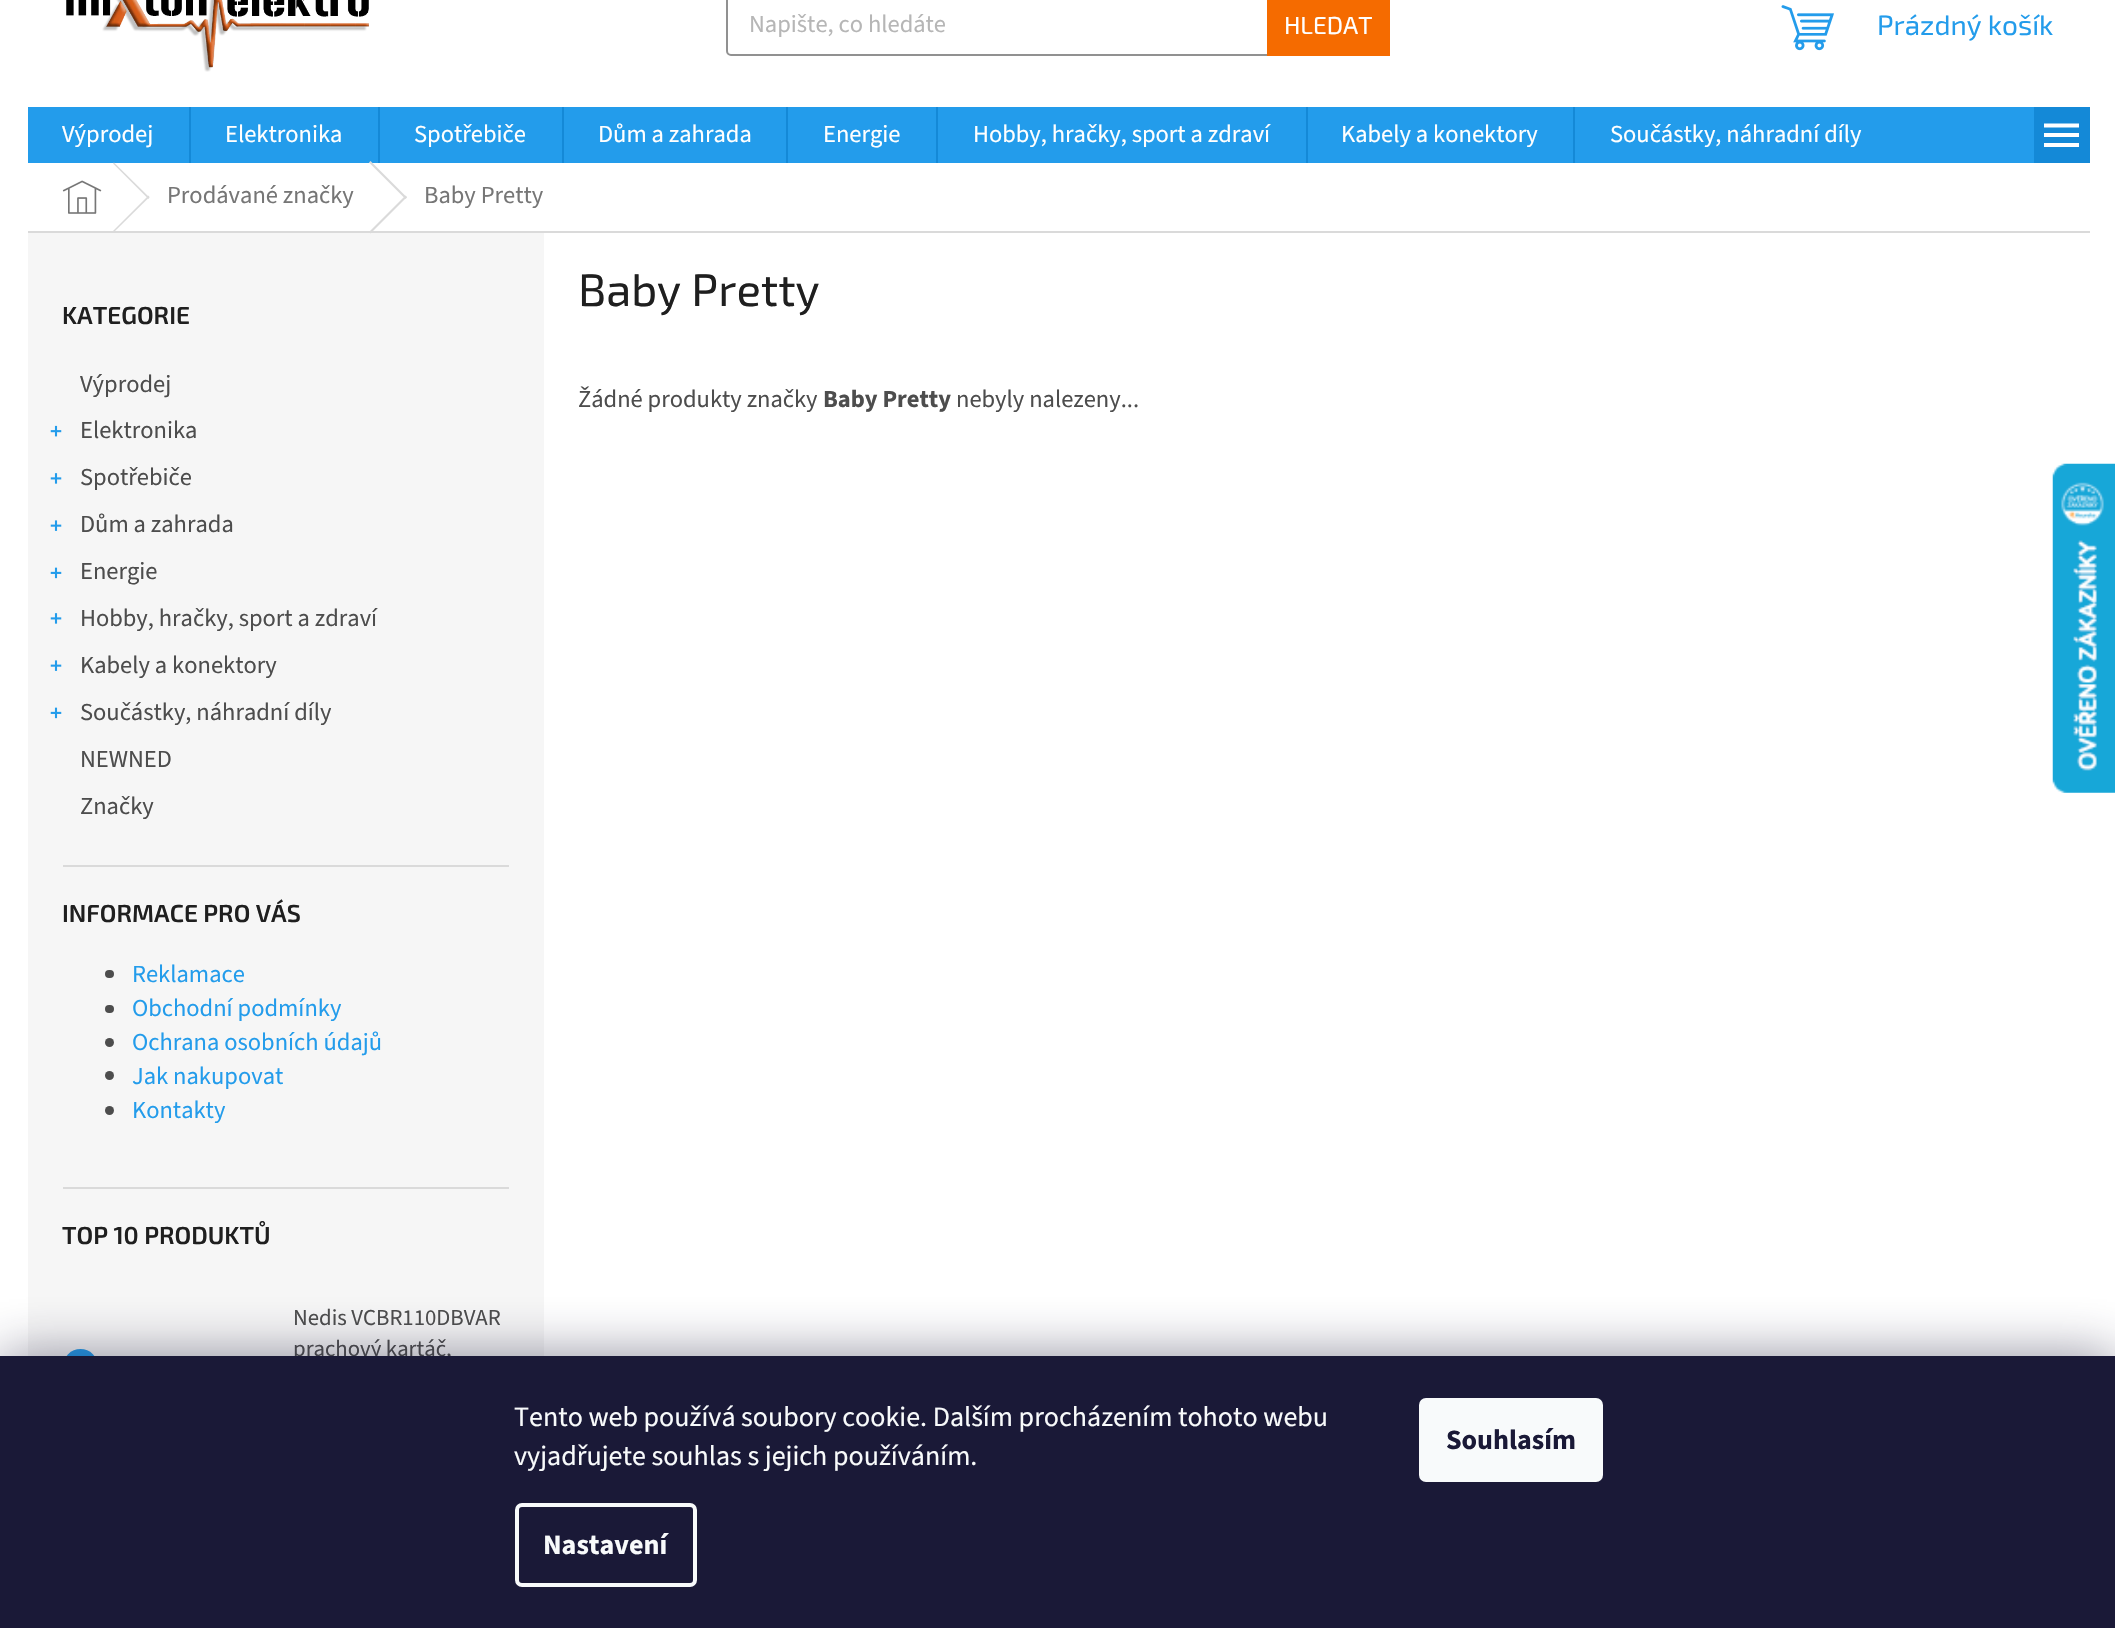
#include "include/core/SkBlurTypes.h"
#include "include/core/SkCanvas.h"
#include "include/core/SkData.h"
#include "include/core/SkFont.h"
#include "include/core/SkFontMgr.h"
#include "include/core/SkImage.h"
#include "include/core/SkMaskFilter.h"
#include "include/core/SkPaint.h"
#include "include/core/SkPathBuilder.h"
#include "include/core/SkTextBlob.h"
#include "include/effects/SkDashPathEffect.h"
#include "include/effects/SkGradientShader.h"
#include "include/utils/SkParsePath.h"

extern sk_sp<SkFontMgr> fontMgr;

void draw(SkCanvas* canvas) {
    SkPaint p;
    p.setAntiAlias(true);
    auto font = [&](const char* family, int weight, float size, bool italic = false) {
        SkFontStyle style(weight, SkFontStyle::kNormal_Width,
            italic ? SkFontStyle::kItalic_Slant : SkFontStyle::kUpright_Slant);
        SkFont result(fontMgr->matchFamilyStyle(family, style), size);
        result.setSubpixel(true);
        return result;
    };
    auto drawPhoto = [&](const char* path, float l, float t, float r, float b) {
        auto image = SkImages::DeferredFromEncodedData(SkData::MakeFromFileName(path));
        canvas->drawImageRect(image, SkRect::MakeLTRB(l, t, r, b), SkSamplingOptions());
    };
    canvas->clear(0xFFFFFFFF);
    drawPhoto("media/1.png", 66, 0, 369, 72);
    p.setStyle(SkPaint::kStroke_Style);
    p.setStrokeWidth(2);
    p.setColor(0xFF919191);
    canvas->drawRoundRect(SkRect::MakeLTRB(727, -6, 1389, 55), 4, 4, p);
    auto font1 = font("Source Sans 3", 400, 24.5f);
    p.setStyle(SkPaint::kFill_Style);
    p.setColor(0xFFB6B6B6);
    canvas->drawString("Napište, co hledáte", 749, 32, font1, p);
    p.setColor(0xFFF56B00);
    canvas->drawRect(SkRect::MakeLTRB(1267, 0, 1390, 56), p);
    auto font2 = font("Exo 2", 400, 24.5f);
    p.setColor(0xFFFFFFFF);
    canvas->drawString("HLEDAT", 1284, 34, font2, p);
    drawPhoto("media/2.png", 1781, 5, 1834, 51);
    auto font3 = font("Exo 2", 400, 28);
    p.setColor(0xFF239CEB);
    canvas->drawString("Prázdný košík", 1877, 35, font3, p);
    canvas->drawRect(SkRect::MakeLTRB(28, 107, 2034, 163), p);
    p.setColor(0xFFFFFFFF);
    canvas->drawString("Výprodej", 62, 142, font1, p);
    p.setColor(0xFF1489D7);
    canvas->drawRect(SkRect::MakeLTRB(189, 107, 191, 163), p);
    p.setColor(0xFFFFFFFF);
    canvas->drawString("Elektronika", 225, 142, font1, p);
    p.setColor(0xFF1489D7);
    canvas->drawRect(SkRect::MakeLTRB(378, 107, 380, 163), p);
    p.setColor(0xFFFFFFFF);
    canvas->drawString("Spotřebiče", 414, 142, font1, p);
    p.setColor(0xFF1489D7);
    canvas->drawRect(SkRect::MakeLTRB(562, 107, 564, 163), p);
    p.setColor(0xFFFFFFFF);
    canvas->drawString("Dům a zahrada", 598, 142, font1, p);
    p.setColor(0xFF1489D7);
    canvas->drawRect(SkRect::MakeLTRB(786, 107, 788, 163), p);
    p.setColor(0xFFFFFFFF);
    canvas->drawString("Energie", 823, 142, font1, p);
    p.setColor(0xFF1489D7);
    canvas->drawRect(SkRect::MakeLTRB(936, 107, 938, 163), p);
    p.setColor(0xFFFFFFFF);
    canvas->drawString("Hobby, hračky, sport a zdraví", 973, 142, font1, p);
    p.setColor(0xFF1489D7);
    canvas->drawRect(SkRect::MakeLTRB(1306, 107, 1308, 163), p);
    p.setColor(0xFFFFFFFF);
    canvas->drawString("Kabely a konektory", 1341, 142, font1, p);
    p.setColor(0xFF1489D7);
    canvas->drawRect(SkRect::MakeLTRB(1573, 107, 1575, 163), p);
    p.setColor(0xFFFFFFFF);
    canvas->drawString("Součástky, náhradní díly", 1610, 142, font1, p);
    p.setColor(0xFF1489D7);
    canvas->drawRect(SkRect::MakeLTRB(2034, 107, 2090, 163), p);
    p.setColor(0xFFFFFFFF);
    canvas->drawPath(SkPathBuilder().moveTo(2044, 147).lineTo(2079, 147).lineTo(2079, 143).lineTo(2044, 143).close().moveTo(2044, 137).lineTo(2079, 137).lineTo(2079, 133).lineTo(2044, 133).close().moveTo(2044, 123.5f).lineTo(2044, 127.5f).lineTo(2079, 127.5f).lineTo(2079, 123.5f).close().detach(), p);
    p.setColor(0xFFDADADA);
    canvas->drawRect(SkRect::MakeLTRB(28, 231, 2090, 233), p);
    drawPhoto("media/3.png", 62, 180, 102, 214);
    canvas->drawPath(SkPathBuilder().moveTo(113, 163.5f).lineTo(114, 162.5f).lineTo(149.5f, 197.5f).lineTo(148.5f, 199).close().detach(), p);
    canvas->drawPath(SkPathBuilder().moveTo(148.5f, 195.5f).lineTo(149.5f, 197).lineTo(114, 232).lineTo(113, 231).close().detach(), p);
    p.setColor(0xFF767676);
    canvas->drawString("Prodávané značky", 167, 203, font1, p);
    p.setColor(0xFFDADADA);
    canvas->drawPath(SkPathBuilder().moveTo(369, 162.5f).lineTo(370.5f, 161).lineTo(407, 197.5f).lineTo(405.5f, 199).close().detach(), p);
    p.setColor(0xFFF6F6F6);
    canvas->drawRect(SkRect::MakeLTRB(28, 233, 544, 1356), p);
    p.setColor(0xFFDADADA);
    canvas->drawPath(SkPathBuilder().moveTo(405.5f, 195.5f).lineTo(407, 197).lineTo(370.5f, 233.5f).lineTo(369, 232).close().detach(), p);
    p.setColor(0xFF767676);
    canvas->drawString("Baby Pretty", 424, 203, font1, p);
    p.setColor(0xFFDADADA);
    canvas->drawRect(SkRect::MakeLTRB(63, 865, 509, 867), p);
    auto font4 = font("Exo 2", 600, 24.5f);
    p.setColor(0xFF1F1F1F);
    canvas->drawString("KATEGORIE", 62, 324, font4, p);
    p.setColor(0xFF4D4D4D);
    canvas->drawString("Výprodej", 80, 392, font1, p);
    drawPhoto("media/4.png", 50, 425, 62, 437);
    canvas->drawString("Elektronika", 80, 438, font1, p);
    drawPhoto("media/5.png", 50, 473, 62, 484);
    canvas->drawString("Spotřebiče", 80, 485, font1, p);
    drawPhoto("media/6.png", 50, 520, 62, 531);
    canvas->drawString("Dům a zahrada", 80, 532, font1, p);
    drawPhoto("media/7.png", 50, 567, 62, 579);
    canvas->drawString("Energie", 80, 579, font1, p);
    drawPhoto("media/5.png", 50, 613, 62, 624);
    canvas->drawString("Hobby, hračky, sport a zdraví", 80, 626, font1, p);
    drawPhoto("media/6.png", 50, 660, 62, 671);
    canvas->drawString("Kabely a konektory", 80, 673, font1, p);
    drawPhoto("media/7.png", 50, 707, 62, 719);
    {
        const struct { const char* s; float x, y; } items[] = {
            {"Součástky, náhradní díly", 80, 720},
            {"NEWNED", 80, 767},
            {"Značky", 80, 814},
        };
        for (auto [s, x, y] : items) {
            canvas->drawString(s, x, y, font1, p);
        }
    }
    p.setColor(0xFFDADADA);
    canvas->drawRect(SkRect::MakeLTRB(63, 1187, 509, 1189), p);
    p.setColor(0xFF1F1F1F);
    canvas->drawString("INFORMACE PRO VÁS", 62, 922, font4, p);
    p.setColor(0xFF4D4D4D);
    canvas->drawRoundRect(SkRect::MakeLTRB(105, 970, 114, 978), 4, 4, p);
    p.setColor(0xFF239CEB);
    canvas->drawString("Reklamace", 132, 982, font1, p);
    p.setColor(0xFF4D4D4D);
    canvas->drawRoundRect(SkRect::MakeLTRB(105, 1005, 114, 1013), 4, 4, p);
    p.setColor(0xFF239CEB);
    canvas->drawString("Obchodní podmínky", 132, 1016, font1, p);
    p.setColor(0xFF4D4D4D);
    canvas->drawCircle(109.5f, 1042.5f, 4.5f, p);
    p.setColor(0xFF239CEB);
    canvas->drawString("Ochrana osobních údajů", 132, 1050, font1, p);
    p.setColor(0xFF4D4D4D);
    canvas->drawCircle(109.5f, 1075.5f, 4.5f, p);
    p.setColor(0xFF239CEB);
    canvas->drawString("Jak nakupovat", 132, 1084, font1, p);
    p.setColor(0xFF4D4D4D);
    canvas->drawCircle(109.5f, 1110.5f, 4.5f, p);
    p.setColor(0xFF239CEB);
    canvas->drawString("Kontakty", 132, 1118, font1, p);
    p.setColor(0xFF1F1F1F);
    canvas->drawString("TOP 10 PRODUKTŮ", 62, 1244, font4, p);
    auto font5 = font("Source Sans 3", 400, 22.75f);
    p.setColor(0xFF4D4D4D);
    canvas->drawString("Nedis VCBR110DBVAR", 293, 1325, font5, p);
    canvas->drawString("prachový kartáč,", 293, 1356, font5, p);
    p.setColor(0xFF239CEB);
    canvas->drawCircle(80.5f, 1366.5f, 17.5f, p);
    auto font6 = font("Exo 2", 400, 45.5f);
    p.setColor(0xFF1F1F1F);
    canvas->drawString("Baby Pretty", 578, 306, font6, p);
    p.setColor(0xFF4D4D4D);
    canvas->drawString("Žádné produkty značky", 578, 407, font1, p);
    auto font7 = font("Source Sans 3", 700, 24.5f);
    canvas->drawString("Baby Pretty", 823, 407, font7, p);
    canvas->drawString("nebyly nalezeny...", 956, 407, font1, p);
    drawPhoto("media/8.png", 2052, 463, 2115, 793);
    p.setColor(0x801B1939);
    p.setMaskFilter(SkMaskFilter::MakeBlur(kNormal_SkBlurStyle, 26));
    canvas->drawRect(SkRect::MakeLTRB(0, 1356, 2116, 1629), p);
    p.setMaskFilter(nullptr);
    p.setColor(0xFF1A1937);
    canvas->drawRect(SkRect::MakeLTRB(0, 1356, 2115, 1628), p);
    auto font8 = font("Source Sans 3", 400, 28);
    p.setColor(0xFFF8FAFB);
    canvas->drawString("Tento web používá soubory cookie. Dalším procházením tohoto webu", 514, 1426, font8, p);
    canvas->drawString("vyjadřujete souhlas s jejich používáním.", 514, 1465, font8, p);
    p.setStyle(SkPaint::kStroke_Style);
    p.setStrokeWidth(4);
    canvas->drawRoundRect(SkRect::MakeLTRB(517, 1505, 695, 1585), 5, 5, p);
    auto font9 = font("Source Sans 3", 700, 28);
    p.setStyle(SkPaint::kFill_Style);
    canvas->drawString("Nastavení", 543, 1554, font9, p);
    canvas->drawRoundRect(SkRect::MakeLTRB(1419, 1398, 1603, 1482), 7, 7, p);
    p.setColor(0xFF1A1937);
    canvas->drawString("Souhlasím", 1446, 1449, font9, p);
}
